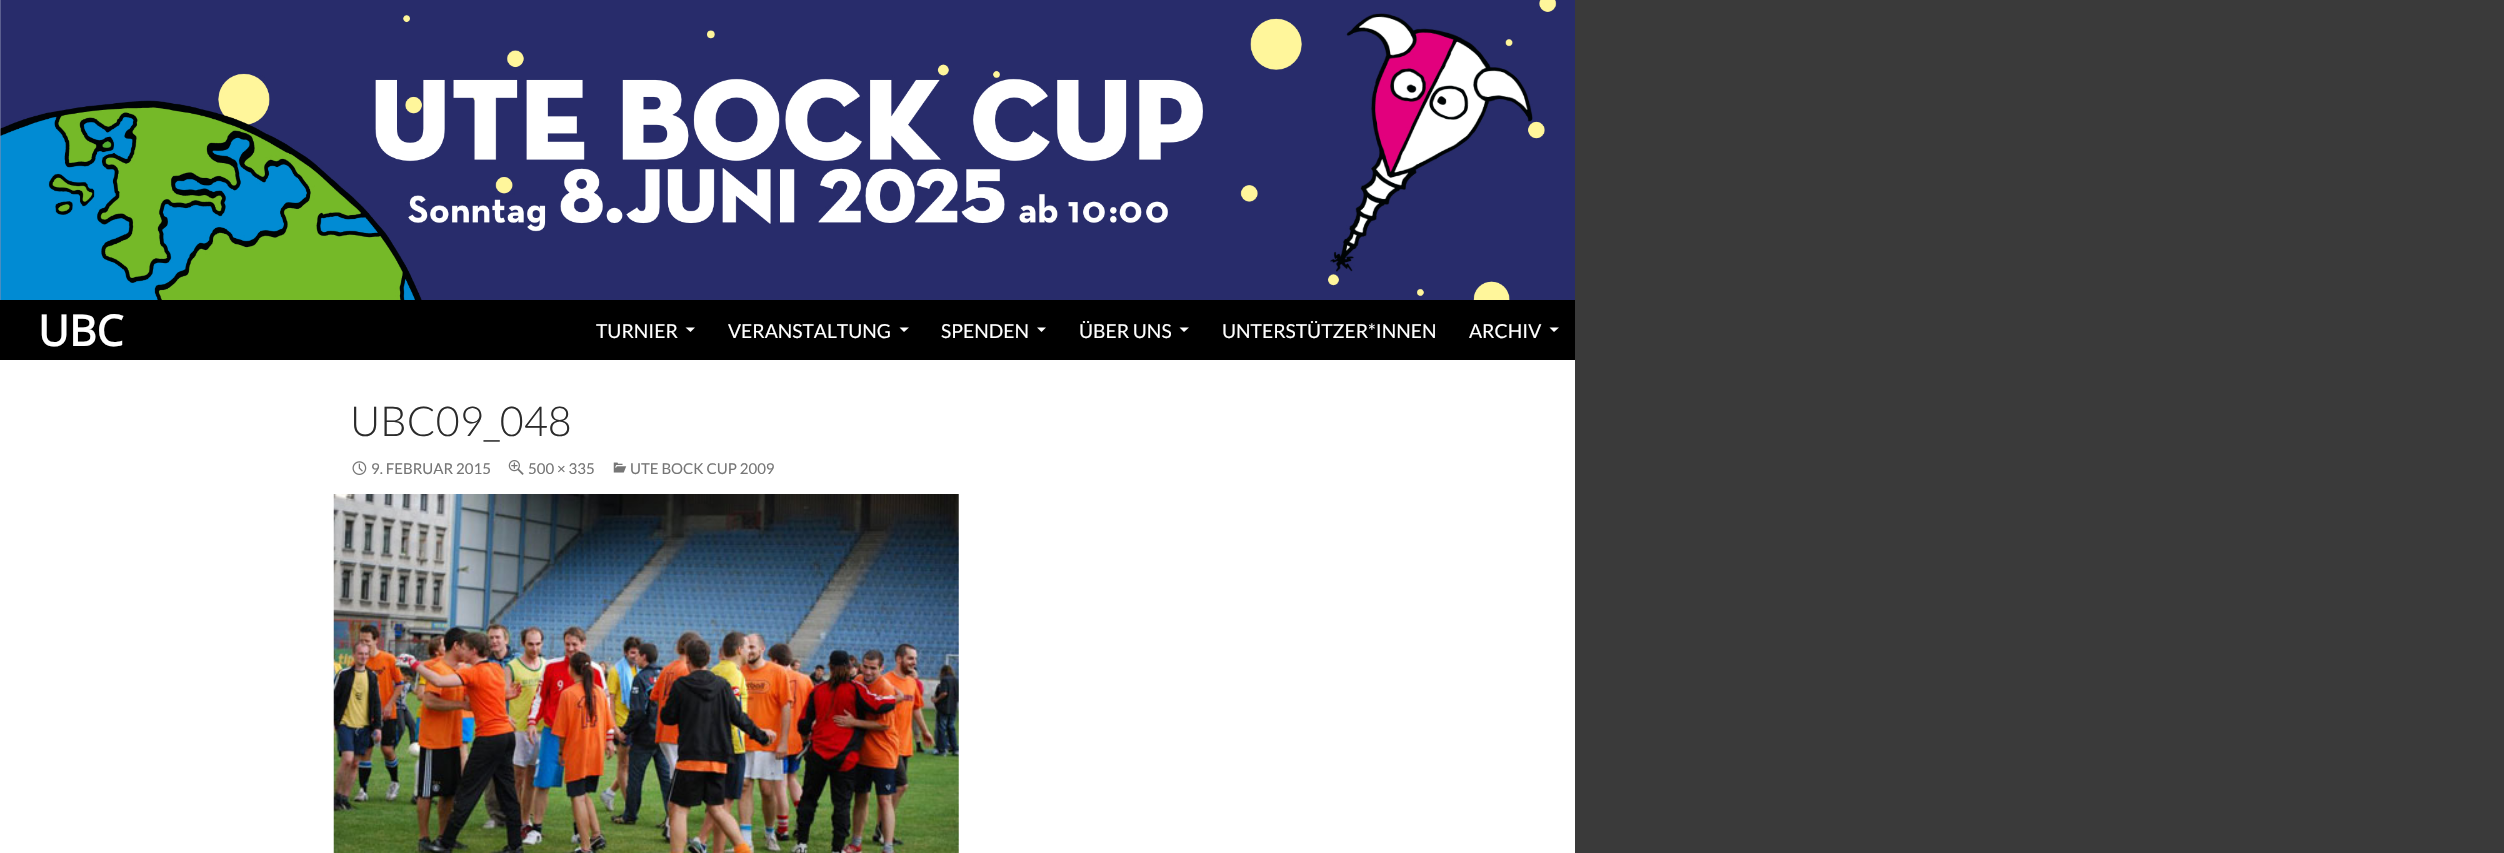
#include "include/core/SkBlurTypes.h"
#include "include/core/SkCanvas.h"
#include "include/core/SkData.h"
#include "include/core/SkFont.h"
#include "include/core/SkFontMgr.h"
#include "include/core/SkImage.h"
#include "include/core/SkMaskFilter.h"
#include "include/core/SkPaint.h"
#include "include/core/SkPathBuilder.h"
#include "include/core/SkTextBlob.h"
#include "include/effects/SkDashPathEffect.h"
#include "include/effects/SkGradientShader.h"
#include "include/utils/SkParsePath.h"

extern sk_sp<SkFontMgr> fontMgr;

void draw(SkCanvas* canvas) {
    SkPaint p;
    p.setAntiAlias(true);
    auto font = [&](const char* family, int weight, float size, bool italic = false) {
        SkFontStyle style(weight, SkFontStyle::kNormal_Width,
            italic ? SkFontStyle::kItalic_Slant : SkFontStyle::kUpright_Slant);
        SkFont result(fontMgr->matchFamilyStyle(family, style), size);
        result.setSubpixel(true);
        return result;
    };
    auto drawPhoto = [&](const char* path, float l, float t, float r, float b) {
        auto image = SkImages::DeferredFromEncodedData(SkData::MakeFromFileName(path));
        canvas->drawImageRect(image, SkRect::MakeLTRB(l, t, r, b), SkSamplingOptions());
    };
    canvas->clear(0xFF3A3A3A);
    p.setColor(0xFFFFFFFF);
    canvas->drawRect(SkRect::MakeLTRB(0, 360, 1575, 853), p);
    drawPhoto("media/1.png", 0, 0, 1575, 300);
    p.setColor(0xFF000000);
    canvas->drawRect(SkRect::MakeLTRB(0, 300, 1575, 360), p);
    auto font1 = font("Open Sans", 700, 42.5f);
    p.setColor(0xFFFFFFFF);
    canvas->drawString("UBC", 38, 346, font1, p);
    auto font2 = font("Lato", 400, 19.25f);
    canvas->drawString("TURNIER", 596, 338, font2, p);
    canvas->drawPath(SkPathBuilder().moveTo(685.5f, 327.5f).lineTo(690.5f, 332).lineTo(695, 327.5f).close().detach(), p);
    canvas->drawString("VERANSTALTUNG", 728, 338, font2, p);
    canvas->drawPath(SkPathBuilder().moveTo(899.5f, 327.5f).lineTo(904, 332).lineTo(909, 327.5f).close().detach(), p);
    canvas->drawString("SPENDEN", 941, 338, font2, p);
    canvas->drawPath(SkPathBuilder().moveTo(1037, 327.5f).lineTo(1041.5f, 332).lineTo(1046, 327.5f).close().detach(), p);
    canvas->drawString("ÜBER UNS", 1079, 338, font2, p);
    canvas->drawPath(SkPathBuilder().moveTo(1179.5f, 327.5f).lineTo(1184, 332).lineTo(1189, 327.5f).close().detach(), p);
    canvas->drawString("UNTERSTÜTZER*INNEN", 1222, 338, font2, p);
    canvas->drawString("ARCHIV", 1469, 338, font2, p);
    canvas->drawPath(SkPathBuilder().moveTo(1549.5f, 327.5f).lineTo(1554, 332).lineTo(1559, 327.5f).close().detach(), p);
    auto font3 = font("Lato", 300, 41.25f);
    p.setColor(0xFF2B2B2B);
    canvas->drawString("UBC09_048", 350, 436, font3, p);
    drawPhoto("media/2.png", 352, 461, 367, 475);
    auto font4 = font("Lato", 400, 15);
    p.setColor(0xFF767676);
    canvas->drawString("9. FEBRUAR 2015", 371, 474, font4, p);
    drawPhoto("media/3.png", 508, 460, 524, 475);
    canvas->drawString("500 × 335", 528, 474, font4, p);
    drawPhoto("media/4.png", 613, 462, 627, 473);
    canvas->drawString("UTE BOCK CUP 2009", 630, 474, font4, p);
    drawPhoto("media/5.png", 333, 494, 959, 853);
}
